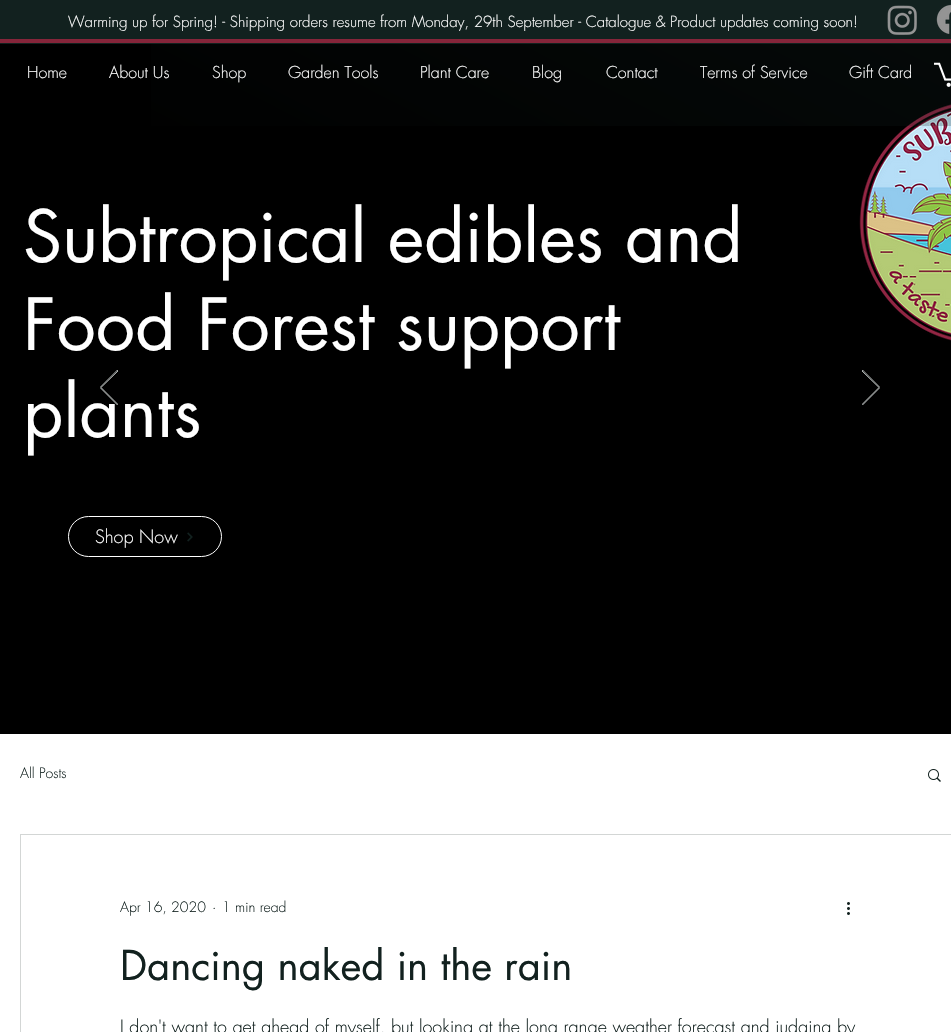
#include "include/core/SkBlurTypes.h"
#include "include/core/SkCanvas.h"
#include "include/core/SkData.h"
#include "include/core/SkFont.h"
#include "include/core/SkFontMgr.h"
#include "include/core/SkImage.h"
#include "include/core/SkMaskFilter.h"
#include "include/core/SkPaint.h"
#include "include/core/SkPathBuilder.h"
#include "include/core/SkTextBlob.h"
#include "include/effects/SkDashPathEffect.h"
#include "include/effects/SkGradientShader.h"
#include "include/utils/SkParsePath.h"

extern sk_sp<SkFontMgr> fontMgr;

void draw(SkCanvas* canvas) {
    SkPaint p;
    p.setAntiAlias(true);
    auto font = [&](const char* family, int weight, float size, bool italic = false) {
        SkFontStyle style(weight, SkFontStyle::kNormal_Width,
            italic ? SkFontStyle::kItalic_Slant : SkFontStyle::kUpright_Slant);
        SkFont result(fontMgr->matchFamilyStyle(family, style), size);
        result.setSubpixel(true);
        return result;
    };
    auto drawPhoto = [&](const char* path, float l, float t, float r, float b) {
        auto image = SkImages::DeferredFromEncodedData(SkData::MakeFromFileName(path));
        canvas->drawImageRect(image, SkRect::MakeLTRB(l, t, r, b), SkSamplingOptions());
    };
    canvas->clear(0xFFFFFFFF);
    p.setColor(0xFF12211F);
    canvas->drawRect(SkRect::MakeLTRB(0, 0, 951, 44), p);
    auto font1 = font("futura", 300, 15);
    p.setColor(0xFFFFFFFF);
    canvas->drawString("Warming up for Spring! - Shipping orders resume from Monday, 29th September - Catalogue & Product updates coming soon!", 68, 27, font1, p);
    drawPhoto("media/1.png", 887, 5, 917, 35);
    drawPhoto("media/2.png", 936, 4, 951, 34);
    p.setColor(0xFF85253A);
    canvas->drawRect(SkRect::MakeLTRB(0, 39, 951, 43), p);
    p.setColor(0xFF000000);
    canvas->drawRect(SkRect::MakeLTRB(0, 44, 951, 734), p);
    drawPhoto("media/4.png", 859, 104, 951, 341);
    {
        const SkColor colors[] = {0x0012211F, 0x4512211F};
        const float stops[] = {0, 0.97f};
        const SkPoint ends[] = {{372, 316}, {608, -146}};
        p.setShader(SkGradientShader::MakeLinear(ends, colors, stops, 2, SkTileMode::kClamp));
        p.setAlpha(255);
    }
    canvas->drawRect(SkRect::MakeLTRB(151, 44, 951, 126), p);
    auto font2 = font("futura", 300, 16);
    p.setShader(nullptr);
    p.setColor(0xFFFFFFFF);
    {
        const struct { const char* s; float x, y; } items[] = {
            {"Home", 27, 78},
            {"About Us", 109, 78},
            {"Shop", 212, 78},
            {"Garden Tools", 288, 78},
            {"Plant Care", 420, 78},
            {"Blog", 532, 78},
            {"Contact", 606, 78},
            {"Terms of Service", 700, 78},
            {"Gift Card", 849, 78},
        };
        for (auto [s, x, y] : items) {
            canvas->drawString(s, x, y, font2, p);
        }
    }
    drawPhoto("media/3.png", 934, 62, 951, 87);
    auto font3 = font("futura", 400, 70);
    {
        const struct { const char* s; float x, y; } items[] = {
            {"Subtropical edibles and", 23, 262},
            {"Food Forest support", 23, 350},
            {"plants", 23, 437},
        };
        for (auto [s, x, y] : items) {
            canvas->drawString(s, x, y, font3, p);
        }
    }
    p.setStyle(SkPaint::kStroke_Style);
    p.setStrokeWidth(1);
    canvas->drawRoundRect(SkRect::MakeLTRB(68.5f, 516.5f, 221.5f, 556.5f), 20, 20, p);
    auto font4 = font("futura", 300, 18);
    p.setStyle(SkPaint::kFill_Style);
    canvas->drawString("Shop Now", 95, 543, font4, p);
    drawPhoto("media/5.png", 187, 532, 193, 542);
    canvas->save();
    canvas->clipRect(SkRect::MakeLTRB(100, 370, 118, 405));
    p.setStyle(SkPaint::kStroke_Style);
    p.setStrokeWidth(0.9f);
    p.setColor(0xFFC4C8C7);
    canvas->drawPath(SkPathBuilder().moveTo(117.5f, 405).lineTo(100, 387.5f).lineTo(117.5f, 370).lineTo(118, 371).lineTo(101, 387.5f).lineTo(118, 404.5f).close().detach(), p);
    canvas->restore();
    canvas->save();
    canvas->clipRect(SkRect::MakeLTRB(862, 370, 880, 405));
    canvas->drawPath(SkPathBuilder().moveTo(862.5f, 405).lineTo(880, 387.5f).lineTo(862.5f, 370).lineTo(862, 371).lineTo(879, 387.5f).lineTo(862, 404.5f).close().detach(), p);
    canvas->restore();
    auto font5 = font("futura", 300, 14);
    p.setStyle(SkPaint::kFill_Style);
    p.setColor(0xFF12211F);
    canvas->drawString("All Posts", 20, 778, font5, p);
    drawPhoto("media/6.png", 928, 769, 941, 782);
    p.setStyle(SkPaint::kStroke_Style);
    p.setStrokeWidth(1);
    p.setColor(0xFFD3D6D5);
    canvas->drawRect(SkRect::MakeLTRB(20.5f, 834.5f, 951.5f, 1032.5f), p);
    p.setStyle(SkPaint::kFill_Style);
    p.setColor(0xFF12211F);
    {
        const struct { const char* s; float x, y; } items[] = {
            {"Apr 16, 2020", 120, 912},
            {"·", 212, 912},
            {"1 min read", 222, 912},
        };
        for (auto [s, x, y] : items) {
            canvas->drawString(s, x, y, font5, p);
        }
    }
    drawPhoto("media/7.png", 847, 902, 850, 915);
    auto font6 = font("futura", 400, 40);
    canvas->drawString("Dancing naked in the rain", 120, 980, font6, p);
    canvas->drawString("I don't want to get ahead of myself, but looking at the long range weather forecast and judging by", 120, 1033, font4, p);
}
